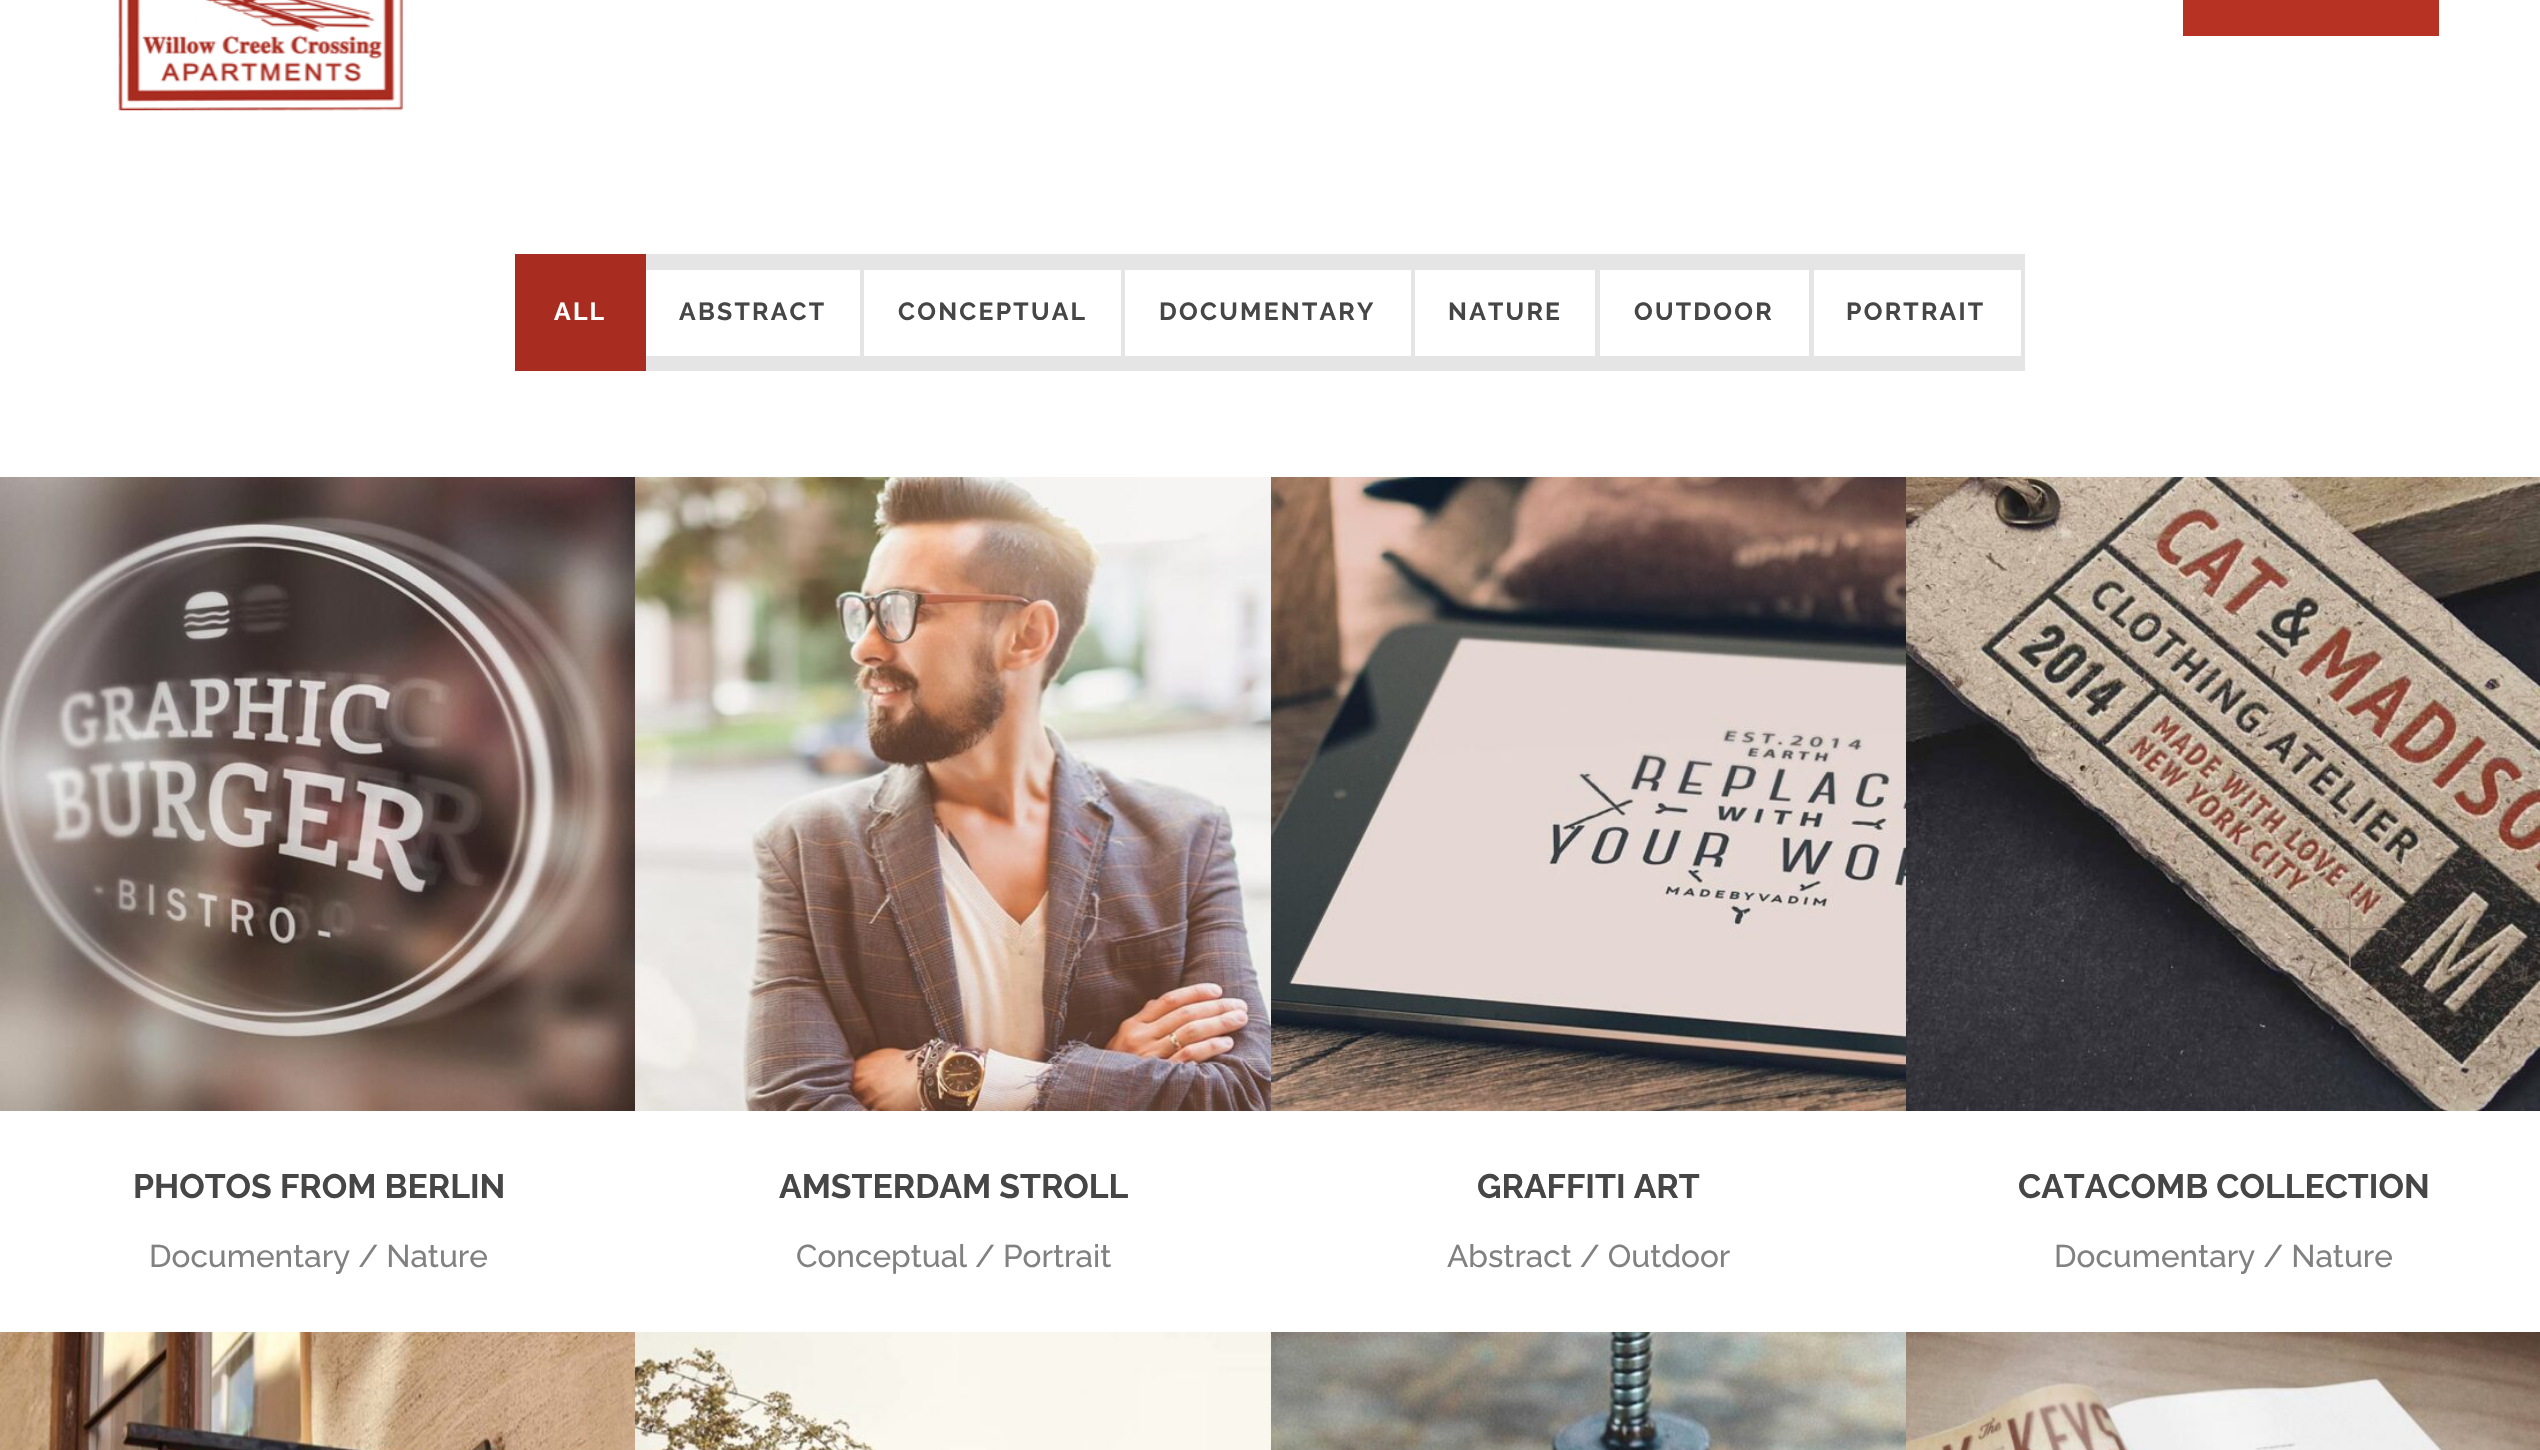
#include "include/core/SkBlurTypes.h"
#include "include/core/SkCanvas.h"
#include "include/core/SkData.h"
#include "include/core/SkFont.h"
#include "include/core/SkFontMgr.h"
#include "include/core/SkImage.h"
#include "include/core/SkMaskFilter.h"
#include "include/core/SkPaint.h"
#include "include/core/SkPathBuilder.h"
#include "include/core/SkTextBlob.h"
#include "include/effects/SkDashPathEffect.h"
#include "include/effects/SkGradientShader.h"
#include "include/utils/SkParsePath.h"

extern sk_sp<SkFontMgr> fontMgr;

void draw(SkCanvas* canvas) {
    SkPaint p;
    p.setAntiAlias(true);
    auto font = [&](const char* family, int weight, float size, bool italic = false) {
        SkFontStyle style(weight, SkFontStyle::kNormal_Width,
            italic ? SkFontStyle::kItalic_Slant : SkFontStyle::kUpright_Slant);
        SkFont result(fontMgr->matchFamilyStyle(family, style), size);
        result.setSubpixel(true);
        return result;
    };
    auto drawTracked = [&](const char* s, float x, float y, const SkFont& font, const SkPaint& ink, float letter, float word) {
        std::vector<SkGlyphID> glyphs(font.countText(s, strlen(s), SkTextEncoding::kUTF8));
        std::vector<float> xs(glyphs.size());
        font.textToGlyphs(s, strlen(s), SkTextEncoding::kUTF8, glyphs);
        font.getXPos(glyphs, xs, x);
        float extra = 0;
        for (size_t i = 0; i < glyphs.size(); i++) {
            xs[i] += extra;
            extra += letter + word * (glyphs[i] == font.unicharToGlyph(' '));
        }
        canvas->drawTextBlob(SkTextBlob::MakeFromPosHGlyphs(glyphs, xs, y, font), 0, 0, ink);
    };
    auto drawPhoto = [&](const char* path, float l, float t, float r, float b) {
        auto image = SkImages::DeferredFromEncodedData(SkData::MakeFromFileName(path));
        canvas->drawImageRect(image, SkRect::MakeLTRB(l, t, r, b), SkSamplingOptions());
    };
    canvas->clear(0xFFFFFFFF);
    drawPhoto("media/1.png", 118, 0, 403, 111);
    p.setColor(0xFFB73223);
    canvas->drawRect(SkRect::MakeLTRB(2183, 0, 2439, 36), p);
    p.setColor(0xFFA92C21);
    canvas->drawRect(SkRect::MakeLTRB(515, 254, 646, 371), p);
    auto font1 = font("Raleway", 700, 24.75f);
    p.setColor(0xFFFFFFFF);
    drawTracked("ALL", 554, 320, font1, p, 2.25f, 0);
    p.setColor(0xFFE5E5E5);
    canvas->drawRect(SkRect::MakeLTRB(646, 254, 2025, 371), p);
    p.setColor(0xFFFFFFFF);
    canvas->drawRect(SkRect::MakeLTRB(646, 270, 860, 356), p);
    p.setColor(0xFF464646);
    drawTracked("ABSTRACT", 679, 320, font1, p, 2.25f, 0);
    p.setColor(0xFFFFFFFF);
    canvas->drawRect(SkRect::MakeLTRB(864, 270, 1121, 356), p);
    p.setColor(0xFF464646);
    drawTracked("CONCEPTUAL", 898, 320, font1, p, 2.25f, 0);
    p.setColor(0xFFFFFFFF);
    canvas->drawRect(SkRect::MakeLTRB(1125, 270, 1411, 356), p);
    p.setColor(0xFF464646);
    drawTracked("DOCUMENTARY", 1159, 320, font1, p, 2.25f, 0);
    p.setColor(0xFFFFFFFF);
    canvas->drawRect(SkRect::MakeLTRB(1415, 270, 1595, 356), p);
    p.setColor(0xFF464646);
    drawTracked("NATURE", 1448, 320, font1, p, 2.25f, 0);
    p.setColor(0xFFFFFFFF);
    canvas->drawRect(SkRect::MakeLTRB(1600, 270, 1809, 356), p);
    p.setColor(0xFF464646);
    drawTracked("OUTDOOR", 1634, 320, font1, p, 2.25f, 0);
    p.setColor(0xFFFFFFFF);
    canvas->drawRect(SkRect::MakeLTRB(1814, 270, 2021, 356), p);
    p.setColor(0xFF464646);
    drawTracked("PORTRAIT", 1846, 320, font1, p, 2.25f, 0);
    drawPhoto("media/2.png", 0, 477, 635, 1111);
    auto font2 = font("Raleway", 700, 33.75f);
    canvas->drawString("PHOTOS FROM BERLIN", 133, 1198, font2, p);
    auto font3 = font("Raleway", 500, 31.5f);
    p.setColor(0xFF818181);
    canvas->drawString("Documentary / Nature", 149, 1267, font3, p);
    drawPhoto("media/3.png", 635, 477, 1271, 1111);
    p.setColor(0xFF464646);
    canvas->drawString("AMSTERDAM STROLL", 779, 1198, font2, p);
    p.setColor(0xFF818181);
    canvas->drawString("Conceptual / Portrait", 796, 1267, font3, p);
    drawPhoto("media/4.png", 1271, 477, 1906, 1111);
    p.setColor(0xFF464646);
    canvas->drawString("GRAFFITI ART", 1477, 1198, font2, p);
    p.setColor(0xFF818181);
    canvas->drawString("Abstract / Outdoor", 1447, 1267, font3, p);
    drawPhoto("media/5.png", 1906, 477, 2540, 1111);
    auto font4 = font("Lato", 200, 158);
    p.setColor(0xFF9D8B7C);
    canvas->drawString("+", 2304, 982, font4, p);
    p.setColor(0xFF464646);
    canvas->drawString("CATACOMB COLLECTION", 2018, 1198, font2, p);
    p.setColor(0xFF818181);
    canvas->drawString("Documentary / Nature", 2054, 1267, font3, p);
    drawPhoto("media/6.png", 0, 1332, 635, 1450);
    drawPhoto("media/7.png", 635, 1332, 1271, 1450);
    drawPhoto("media/8.png", 1271, 1332, 1906, 1450);
    drawPhoto("media/9.png", 1906, 1332, 2540, 1450);
}
